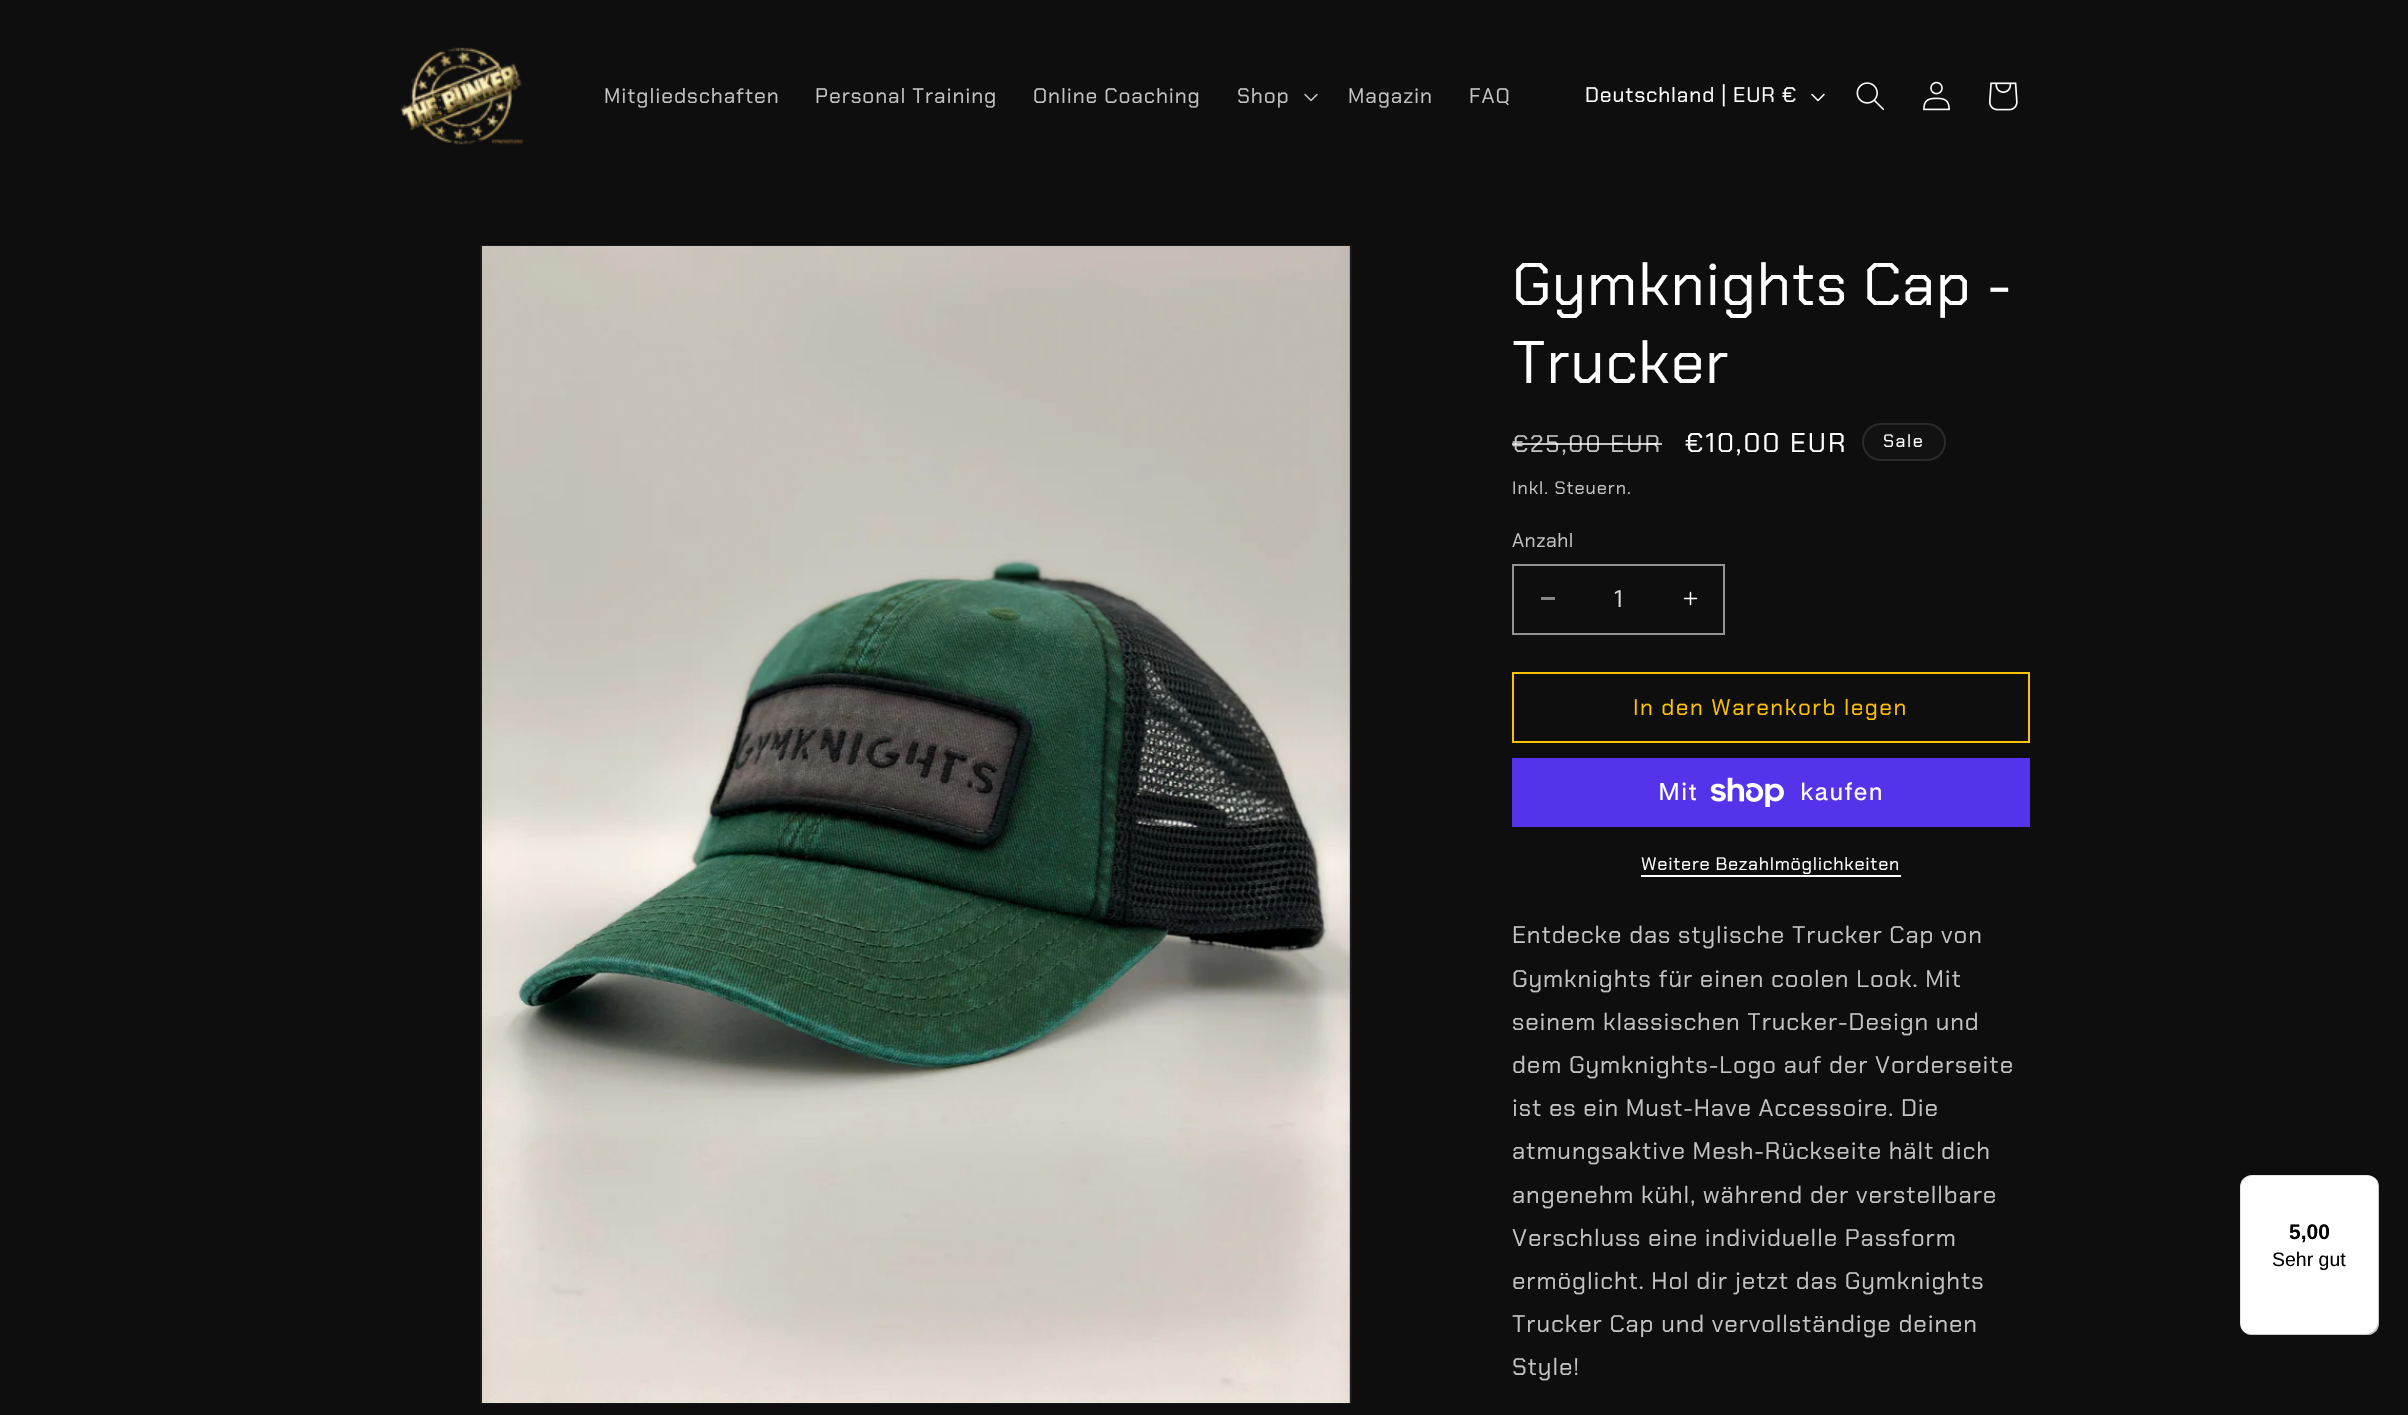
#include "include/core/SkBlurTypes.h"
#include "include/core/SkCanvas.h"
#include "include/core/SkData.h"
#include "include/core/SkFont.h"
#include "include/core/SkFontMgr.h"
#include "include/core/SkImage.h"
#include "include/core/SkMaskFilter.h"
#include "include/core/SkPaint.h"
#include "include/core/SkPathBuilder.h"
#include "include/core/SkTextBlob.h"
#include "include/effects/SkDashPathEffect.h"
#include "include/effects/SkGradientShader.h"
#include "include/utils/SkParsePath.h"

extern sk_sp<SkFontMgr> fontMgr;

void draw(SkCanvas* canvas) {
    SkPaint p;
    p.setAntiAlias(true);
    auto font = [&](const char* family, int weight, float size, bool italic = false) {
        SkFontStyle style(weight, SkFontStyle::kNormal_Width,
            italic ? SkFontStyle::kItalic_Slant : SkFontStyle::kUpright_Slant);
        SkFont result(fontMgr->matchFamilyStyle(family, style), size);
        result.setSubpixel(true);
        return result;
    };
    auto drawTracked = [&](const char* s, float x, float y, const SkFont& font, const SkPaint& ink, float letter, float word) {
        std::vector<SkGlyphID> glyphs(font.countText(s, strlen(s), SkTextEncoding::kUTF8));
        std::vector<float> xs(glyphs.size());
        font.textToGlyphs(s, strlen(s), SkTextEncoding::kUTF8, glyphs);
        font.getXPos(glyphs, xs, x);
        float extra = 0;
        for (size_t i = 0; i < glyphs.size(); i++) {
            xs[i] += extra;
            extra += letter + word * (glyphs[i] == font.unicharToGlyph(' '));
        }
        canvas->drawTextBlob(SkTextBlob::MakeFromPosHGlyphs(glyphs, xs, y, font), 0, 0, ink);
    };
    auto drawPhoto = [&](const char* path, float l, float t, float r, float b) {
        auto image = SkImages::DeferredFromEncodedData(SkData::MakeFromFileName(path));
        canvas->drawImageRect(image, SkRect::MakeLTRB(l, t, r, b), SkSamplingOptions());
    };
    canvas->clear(0xFF0E0E0E);
    drawPhoto("media/1.png", 400, 47, 524, 145);
    auto font1 = font("Chakra Petch", 400, 21);
    p.setColor(0xFFC3C3C3);
    {
        const struct { const char* s; float x, y; } items[] = {
            {"Mitgliedschaften", 604, 103},
            {"Personal Training", 815, 103},
            {"Online Coaching", 1033, 103},
            {"Shop", 1237, 103},
        };
        for (auto [s, x, y] : items) {
            drawTracked(s, x, y, font1, p, 0.9f, 0);
        }
    }
    drawPhoto("media/2.png", 1304, 93, 1318, 102);
    drawTracked("Magazin", 1348, 103, font1, p, 0.9f, 0);
    drawTracked("FAQ", 1469, 103, font1, p, 0.9f, 0);
    p.setColor(0xFFFFFFFF);
    drawTracked("Deutschland | EUR €", 1585, 102, font1, p, 0.9f, 0);
    drawPhoto("media/3.png", 1811, 93, 1825, 102);
    drawPhoto("media/4.png", 1856, 82, 1884, 110);
    drawPhoto("media/5.png", 1923, 81, 1950, 111);
    drawPhoto("media/6.png", 1989, 82, 2018, 111);
    p.setStyle(SkPaint::kStroke_Style);
    p.setStrokeWidth(2);
    p.setColor(0xFF1A1A1A);
    canvas->drawRect(SkRect::MakeLTRB(481, 246, 1351, 1403), p);
    drawPhoto("media/7.png", 482, 246, 1350, 1403);
    auto font2 = font("Chakra Petch", 400, 60);
    p.setStyle(SkPaint::kFill_Style);
    p.setColor(0xFFFFFFFF);
    drawTracked("Gymknights Cap -", 1512, 305, font2, p, 0.9f, 0);
    drawTracked("Trucker", 1512, 383, font2, p, 0.9f, 0);
    auto font3 = font("Chakra Petch", 400, 24);
    p.setColor(0xFFC3C3C3);
    drawTracked("€25,00 EUR", 1512, 452, font3, p, 2, 0);
    p.setColor(0xBFFFFFFF);
    canvas->drawRect(SkRect::MakeLTRB(1512, 443, 1662, 445), p);
    auto font4 = font("Chakra Petch", 400, 27);
    p.setColor(0xFFFFFFFF);
    drawTracked("€10,00 EUR", 1685, 452, font4, p, 2, 0);
    p.setColor(0xFF121212);
    canvas->drawRoundRect(SkRect::MakeLTRB(1863, 424, 1945, 460), 18, 18, p);
    p.setStyle(SkPaint::kStroke_Style);
    p.setColor(0xFF2A2A2A);
    canvas->drawRoundRect(SkRect::MakeLTRB(1863, 424, 1945, 460), 18, 18, p);
    auto font5 = font("Chakra Petch", 400, 18);
    p.setStyle(SkPaint::kFill_Style);
    p.setColor(0xFFFFFFFF);
    drawTracked("Sale", 1883, 447, font5, p, 1.5f, 0);
    p.setColor(0xFFC3C3C3);
    drawTracked("Inkl. Steuern.", 1512, 494, font5, p, 1, 0);
    auto font6 = font("Chakra Petch", 400, 19.5f);
    drawTracked("Anzahl", 1512, 547, font6, p, 0.5f, 0);
    p.setColor(0xFF878787);
    canvas->drawRect(SkRect::MakeLTRB(1541, 597, 1555, 600), p);
    drawPhoto("media/8.png", 1683, 591, 1698, 606);
    p.setStyle(SkPaint::kStroke_Style);
    p.setColor(0xFF939393);
    canvas->drawRect(SkRect::MakeLTRB(1513, 565, 1724, 634), p);
    p.setStyle(SkPaint::kFill_Style);
    p.setColor(0xFFDBDBDB);
    canvas->drawString("1", 1614, 607, font3, p);
    p.setStyle(SkPaint::kStroke_Style);
    p.setColor(0xFFFFC200);
    canvas->drawRect(SkRect::MakeLTRB(1513, 673, 2029, 742), p);
    auto font7 = font("Chakra Petch", 400, 22.5f);
    p.setStyle(SkPaint::kFill_Style);
    drawTracked("In den Warenkorb legen", 1633, 715, font7, p, 1.5f, 0);
    p.setColor(0xFF5433EB);
    canvas->drawRect(SkRect::MakeLTRB(1512, 758, 2030, 827), p);
    auto font8 = font("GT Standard", 400, 24);
    p.setColor(0xFFFFFFFF);
    drawTracked("Mit", 1658, 800, font8, p, 0.9f, 0);
    drawPhoto("media/9.png", 1710, 777, 1784, 807);
    drawTracked("kaufen", 1800, 800, font8, p, 0.9f, 0);
    drawTracked("Weitere Bezahlmöglichkeiten", 1641, 870, font5, p, 0.75f, 0);
    canvas->drawRect(SkRect::MakeLTRB(1641, 875, 1901, 877), p);
    p.setColor(0xFFC3C3C3);
    {
        const struct { const char* s; float x, y; } items[] = {
            {"Entdecke das stylische Trucker Cap von", 1512, 943},
            {"Gymknights für einen coolen Look. Mit", 1512, 987},
            {"seinem klassischen Trucker-Design und", 1512, 1030},
            {"dem Gymknights-Logo auf der Vorderseite", 1512, 1073},
            {"ist es ein Must-Have Accessoire. Die", 1512, 1116},
            {"atmungsaktive Mesh-Rückseite hält dich", 1512, 1159},
            {"angenehm kühl, während der verstellbare", 1512, 1203},
            {"Verschluss eine individuelle Passform", 1512, 1246},
            {"ermöglicht. Hol dir jetzt das Gymknights", 1512, 1289},
            {"Trucker Cap und vervollständige deinen", 1512, 1332},
            {"Style!", 1512, 1375},
        };
        for (auto [s, x, y] : items) {
            drawTracked(s, x, y, font3, p, 0.9f, 0);
        }
    }
    p.setColor(0xFFFFFFFF);
    canvas->drawRoundRect(SkRect::MakeLTRB(2240, 1175, 2379, 1335), 12, 12, p);
    p.setColor(0x1A000000);
    canvas->drawPath(SkPathBuilder().moveTo(2253, 1176).lineTo(2368, 1176).cubicTo(2371, 1176, 2373, 1177, 2375, 1178).cubicTo(2373, 1176, 2370, 1175, 2367, 1175).lineTo(2252, 1175).cubicTo(2245, 1175, 2240, 1180, 2240, 1187).lineTo(2240, 1323).cubicTo(2240, 1326, 2241, 1329, 2243, 1331).cubicTo(2242, 1329, 2241, 1327, 2241, 1324).lineTo(2241, 1188).cubicTo(2241, 1181, 2246, 1176, 2253, 1176).close().detach(), p);
    p.setColor(0x33000000);
    canvas->drawPath(SkPathBuilder().moveTo(2246, 1333).cubicTo(2247, 1334, 2250, 1335, 2252, 1335).lineTo(2367, 1335).cubicTo(2374, 1335, 2379, 1330, 2379, 1323).lineTo(2379, 1187).cubicTo(2379, 1185, 2378, 1182, 2377, 1181).lineTo(2378, 1185).lineTo(2378, 1322).cubicTo(2378, 1328, 2372, 1334, 2366, 1334).lineTo(2250, 1334).close().detach(), p);
    p.setColor(0x33323232);
    canvas->drawPath(SkPathBuilder().moveTo(2244, 1332).cubicTo(2246, 1334, 2249, 1335, 2252, 1335).lineTo(2367, 1335).cubicTo(2374, 1335, 2379, 1330, 2379, 1323).lineTo(2379, 1187).cubicTo(2379, 1184, 2378, 1181, 2376, 1179).cubicTo(2377, 1181, 2378, 1183, 2378, 1186).lineTo(2378, 1322).cubicTo(2378, 1329, 2373, 1334, 2366, 1334).lineTo(2251, 1334).cubicTo(2248, 1334, 2246, 1333, 2244, 1332).close().detach(), p);
    p.setColor(0x4DFFFFFF);
    canvas->drawPath(SkPathBuilder().moveTo(2244, 1332).cubicTo(2246, 1334, 2249, 1335, 2252, 1335).lineTo(2367, 1335).cubicTo(2374, 1335, 2379, 1330, 2379, 1323).lineTo(2379, 1187).cubicTo(2379, 1184, 2378, 1181, 2376, 1179).cubicTo(2377, 1181, 2378, 1183, 2378, 1186).lineTo(2378, 1322).cubicTo(2378, 1329, 2373, 1334, 2366, 1334).lineTo(2251, 1334).cubicTo(2248, 1334, 2246, 1333, 2244, 1332).close().detach(), p);
    auto font9 = font("Liberation Sans", 700, 21);
    p.setColor(0xFF000000);
    canvas->drawString("5,00", 2289, 1239, font9, p);
    auto font10 = font("Liberation Sans", 400, 19.5f);
    canvas->drawString("Sehr gut", 2272, 1266, font10, p);
}
